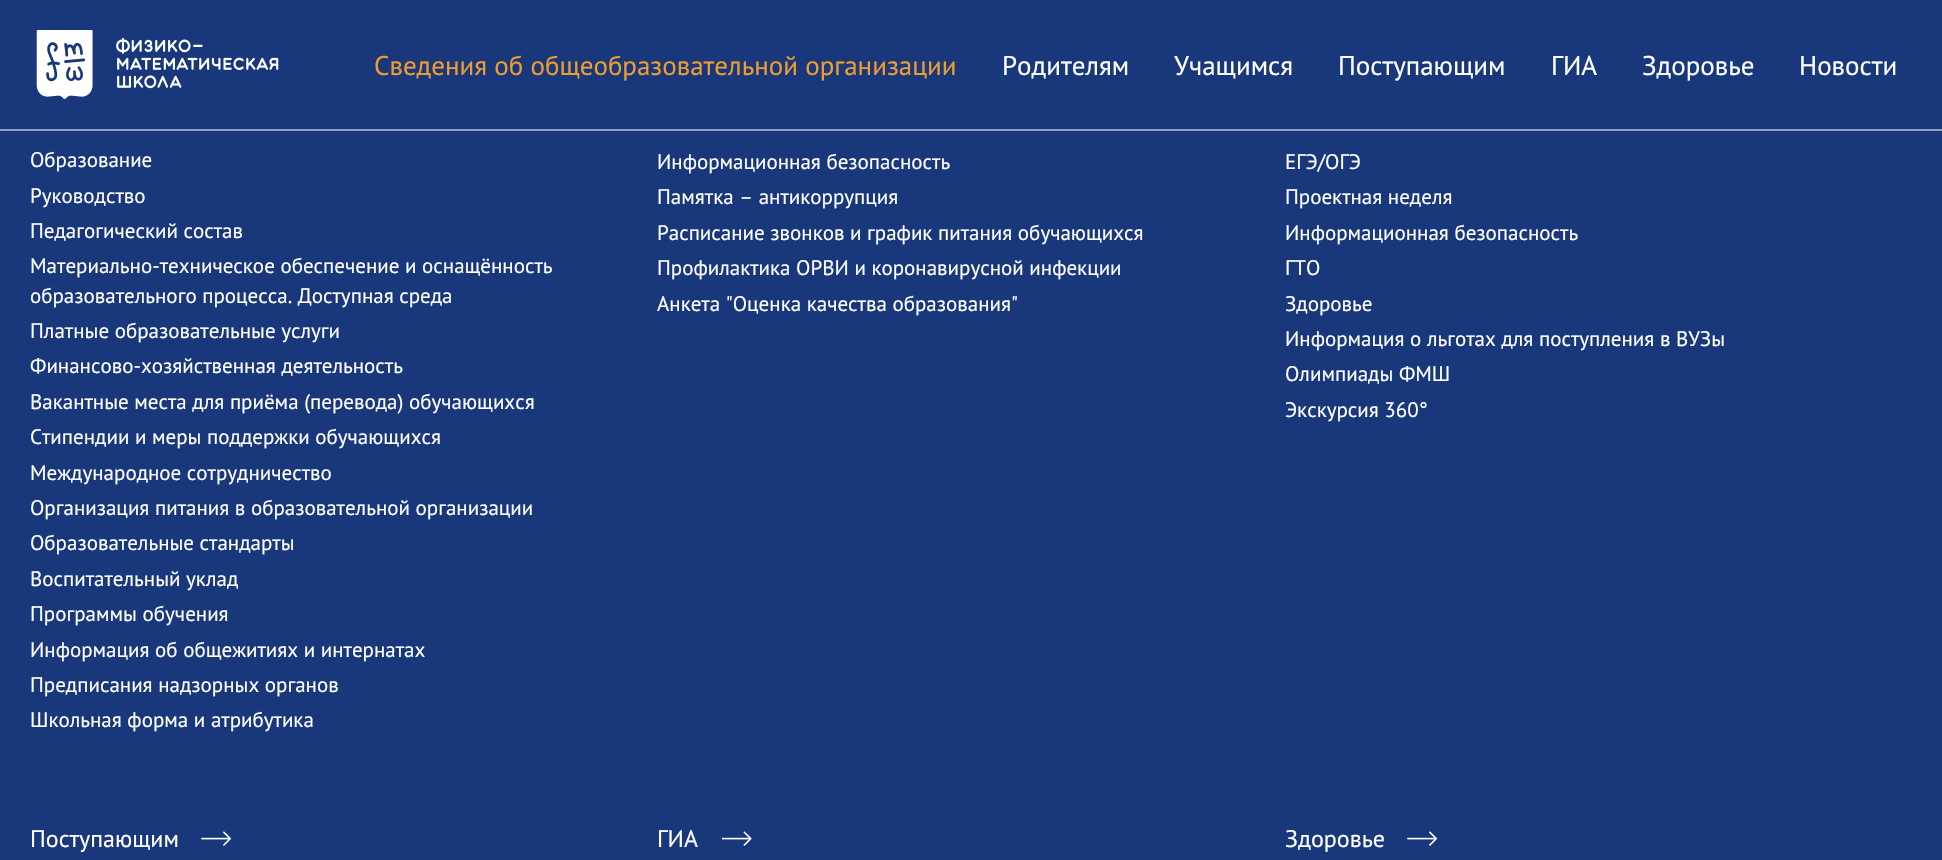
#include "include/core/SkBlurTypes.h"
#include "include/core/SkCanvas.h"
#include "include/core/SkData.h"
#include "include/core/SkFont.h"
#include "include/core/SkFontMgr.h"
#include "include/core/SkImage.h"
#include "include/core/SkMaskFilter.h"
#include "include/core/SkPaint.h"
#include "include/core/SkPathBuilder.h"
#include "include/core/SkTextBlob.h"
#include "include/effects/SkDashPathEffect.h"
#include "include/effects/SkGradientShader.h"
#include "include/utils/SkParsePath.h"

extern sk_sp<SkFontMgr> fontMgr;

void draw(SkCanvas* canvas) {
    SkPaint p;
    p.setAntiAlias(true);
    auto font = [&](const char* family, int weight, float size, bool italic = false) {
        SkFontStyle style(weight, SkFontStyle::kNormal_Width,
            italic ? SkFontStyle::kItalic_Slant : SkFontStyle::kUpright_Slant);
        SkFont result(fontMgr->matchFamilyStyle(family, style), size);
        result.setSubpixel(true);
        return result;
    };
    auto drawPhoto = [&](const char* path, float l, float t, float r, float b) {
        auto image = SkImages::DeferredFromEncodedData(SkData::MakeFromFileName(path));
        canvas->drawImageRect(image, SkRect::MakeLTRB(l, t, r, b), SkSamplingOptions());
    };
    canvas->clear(0xFF19387C);
    p.setColor(0xFF8DA1BF);
    canvas->drawRect(SkRect::MakeLTRB(0, 129, 1942, 131), p);
    drawPhoto("media/1.png", 36, 30, 279, 99);
    auto font1 = font("PT Sans", 400, 27);
    p.setColor(0xFFEE9D31);
    canvas->drawString("Сведения об общеобразовательной организации", 374, 75, font1, p);
    p.setColor(0xFFFFFFFF);
    {
        const struct { const char* s; float x, y; } items[] = {
            {"Родителям", 1002, 75},
            {"Учащимся", 1174, 75},
            {"Поступающим", 1338, 75},
            {"ГИА", 1551, 75},
            {"Здоровье", 1642, 75},
            {"Новости", 1799, 75},
        };
        for (auto [s, x, y] : items) {
            canvas->drawString(s, x, y, font1, p);
        }
    }
    auto font2 = font("PT Sans", 400, 21);
    {
        const struct { const char* s; float x, y; } items[] = {
            {"Образование", 30, 167},
            {"Руководство", 30, 203},
            {"Педагогический состав", 30, 238},
            {"Материально-техническое обеспечение и оснащённость", 30, 273},
            {"образовательного процесса. Доступная среда", 30, 303},
            {"Платные образовательные услуги", 30, 338},
            {"Финансово-хозяйственная деятельность", 30, 373},
            {"Вакантные места для приёма (перевода) обучающихся", 30, 409},
            {"Стипендии и меры поддержки обучающихся", 30, 444},
            {"Международное сотрудничество", 30, 480},
            {"Организация питания в образовательной организации", 30, 515},
            {"Образовательные стандарты", 30, 550},
            {"Воспитательный уклад", 30, 586},
            {"Программы обучения", 30, 621},
            {"Информация об общежитиях и интернатах", 30, 657},
            {"Предписания надзорных органов", 30, 692},
            {"Школьная форма и атрибутика", 30, 727},
            {"Информационная безопасность", 657, 169},
            {"Памятка – антикоррупция", 657, 204},
            {"Расписание звонков и график питания обучающихся", 657, 240},
            {"Профилактика ОРВИ и коронавирусной инфекции", 657, 275},
            {"Анкета \"Оценка качества образования\"", 657, 311},
            {"ЕГЭ/ОГЭ", 1285, 169},
            {"Проектная неделя", 1285, 204},
            {"Информационная безопасность", 1285, 240},
            {"ГТО", 1285, 275},
            {"Здоровье", 1285, 311},
            {"Информация о льготах для поступления в ВУЗы", 1285, 346},
            {"Олимпиады ФМШ", 1285, 381},
            {"Экскурсия 360°", 1285, 417},
        };
        for (auto [s, x, y] : items) {
            canvas->drawString(s, x, y, font2, p);
        }
    }
    auto font3 = font("PT Sans", 400, 24);
    canvas->drawString("Поступающим", 30, 847, font3, p);
    drawPhoto("media/2.png", 201, 831, 231, 846);
    canvas->drawString("ГИА", 657, 847, font3, p);
    drawPhoto("media/3.png", 722, 831, 752, 846);
    canvas->drawString("Здоровье", 1285, 847, font3, p);
    drawPhoto("media/2.png", 1407, 831, 1437, 846);
}
